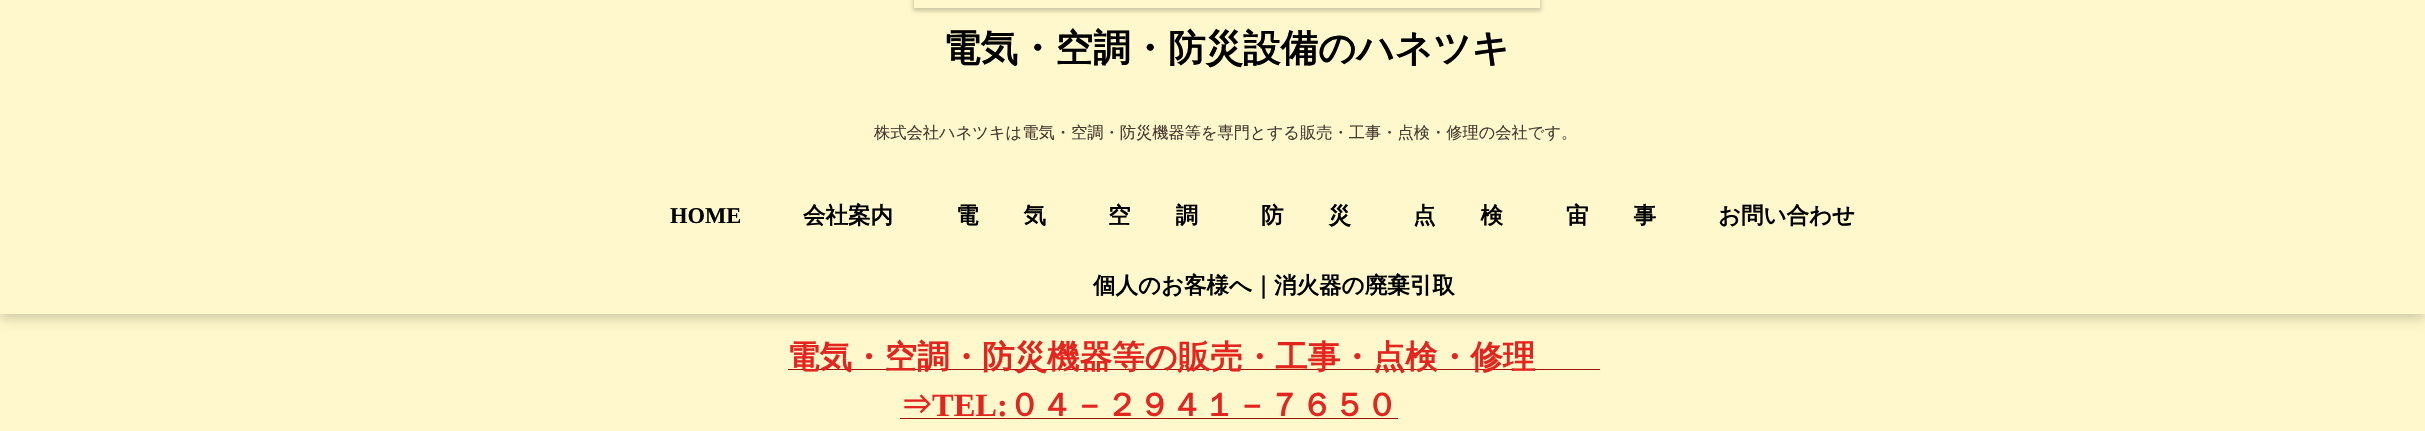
#include "include/core/SkBlurTypes.h"
#include "include/core/SkCanvas.h"
#include "include/core/SkData.h"
#include "include/core/SkFont.h"
#include "include/core/SkFontMgr.h"
#include "include/core/SkImage.h"
#include "include/core/SkMaskFilter.h"
#include "include/core/SkPaint.h"
#include "include/core/SkPathBuilder.h"
#include "include/core/SkTextBlob.h"
#include "include/effects/SkDashPathEffect.h"
#include "include/effects/SkGradientShader.h"
#include "include/utils/SkParsePath.h"

extern sk_sp<SkFontMgr> fontMgr;

void draw(SkCanvas* canvas) {
    SkPaint p;
    p.setAntiAlias(true);
    auto font = [&](const char* family, int weight, float size, bool italic = false) {
        SkFontStyle style(weight, SkFontStyle::kNormal_Width,
            italic ? SkFontStyle::kItalic_Slant : SkFontStyle::kUpright_Slant);
        SkFont result(fontMgr->matchFamilyStyle(family, style), size);
        result.setSubpixel(true);
        return result;
    };
    canvas->clear(0xFFFFF8CC);
    p.setColor(0x33000000);
    p.setMaskFilter(SkMaskFilter::MakeBlur(kNormal_SkBlurStyle, 6));
    canvas->drawRect(SkRect::MakeLTRB(0, 4, 2425, 318), p);
    p.setMaskFilter(nullptr);
    p.setColor(0xFFFFF8CC);
    canvas->drawRect(SkRect::MakeLTRB(0, 0, 2425, 314), p);
    p.setColor(0x33000000);
    p.setMaskFilter(SkMaskFilter::MakeBlur(kNormal_SkBlurStyle, 2));
    canvas->drawRect(SkRect::MakeLTRB(913, -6, 1541, 11), p);
    p.setMaskFilter(nullptr);
    p.setColor(0xFFFFF8CC);
    canvas->drawRect(SkRect::MakeLTRB(914, 0, 1540, 8), p);
    auto font1 = font("WenQuanYi Zen Hei", 700, 37.5f);
    p.setColor(0xFF000000);
    canvas->drawString("電気・空調・防災設備のハネツキ", 943, 61, font1, p);
    auto font2 = font("WenQuanYi Zen Hei", 500, 16.25f);
    p.setColor(0xFF473930);
    canvas->drawString("株式会社ハネツキは電気・空調・防災機器等を専門とする販売・工事・点検・修理の会社です。", 874, 138, font2, p);
    auto font3 = font("Liberation Serif", 700, 22.5f);
    p.setColor(0xFF000000);
    canvas->drawString("HOME", 670, 223, font3, p);
    auto font4 = font("WenQuanYi Zen Hei", 700, 22.5f);
    {
        const struct { const char* s; float x, y; } items[] = {
            {"会社案内", 803, 223},
            {"電　　気", 956, 223},
            {"空　　調", 1108, 223},
            {"防　　災", 1261, 223},
            {"点　　検", 1413, 223},
            {"宙　　事", 1566, 223},
            {"お問い合わせ", 1718, 223},
            {"個人のお客様へ｜消火器の廃棄引取", 1093, 293},
        };
        for (auto [s, x, y] : items) {
            canvas->drawString(s, x, y, font4, p);
        }
    }
    p.setColor(0xFF9E140C);
    canvas->drawRect(SkRect::MakeLTRB(788, 369, 1600, 370), p);
    auto font5 = font("WenQuanYi Zen Hei", 700, 32.5f);
    p.setColor(0xFFE32520);
    canvas->drawString("電気・空調・防災機器等の販売・工事・点検・修理", 787, 368, font5, p);
    canvas->drawString("⇒", 900, 416, font5, p);
    auto font6 = font("Liberation Serif", 700, 32.5f);
    canvas->drawString("TEL:", 932, 416, font6, p);
    p.setColor(0xFF9E140C);
    canvas->drawRect(SkRect::MakeLTRB(900, 418, 1398, 419), p);
    p.setColor(0xFFE32520);
    canvas->drawString("０４－２９４１－７６５０", 1008, 416, font5, p);
}
